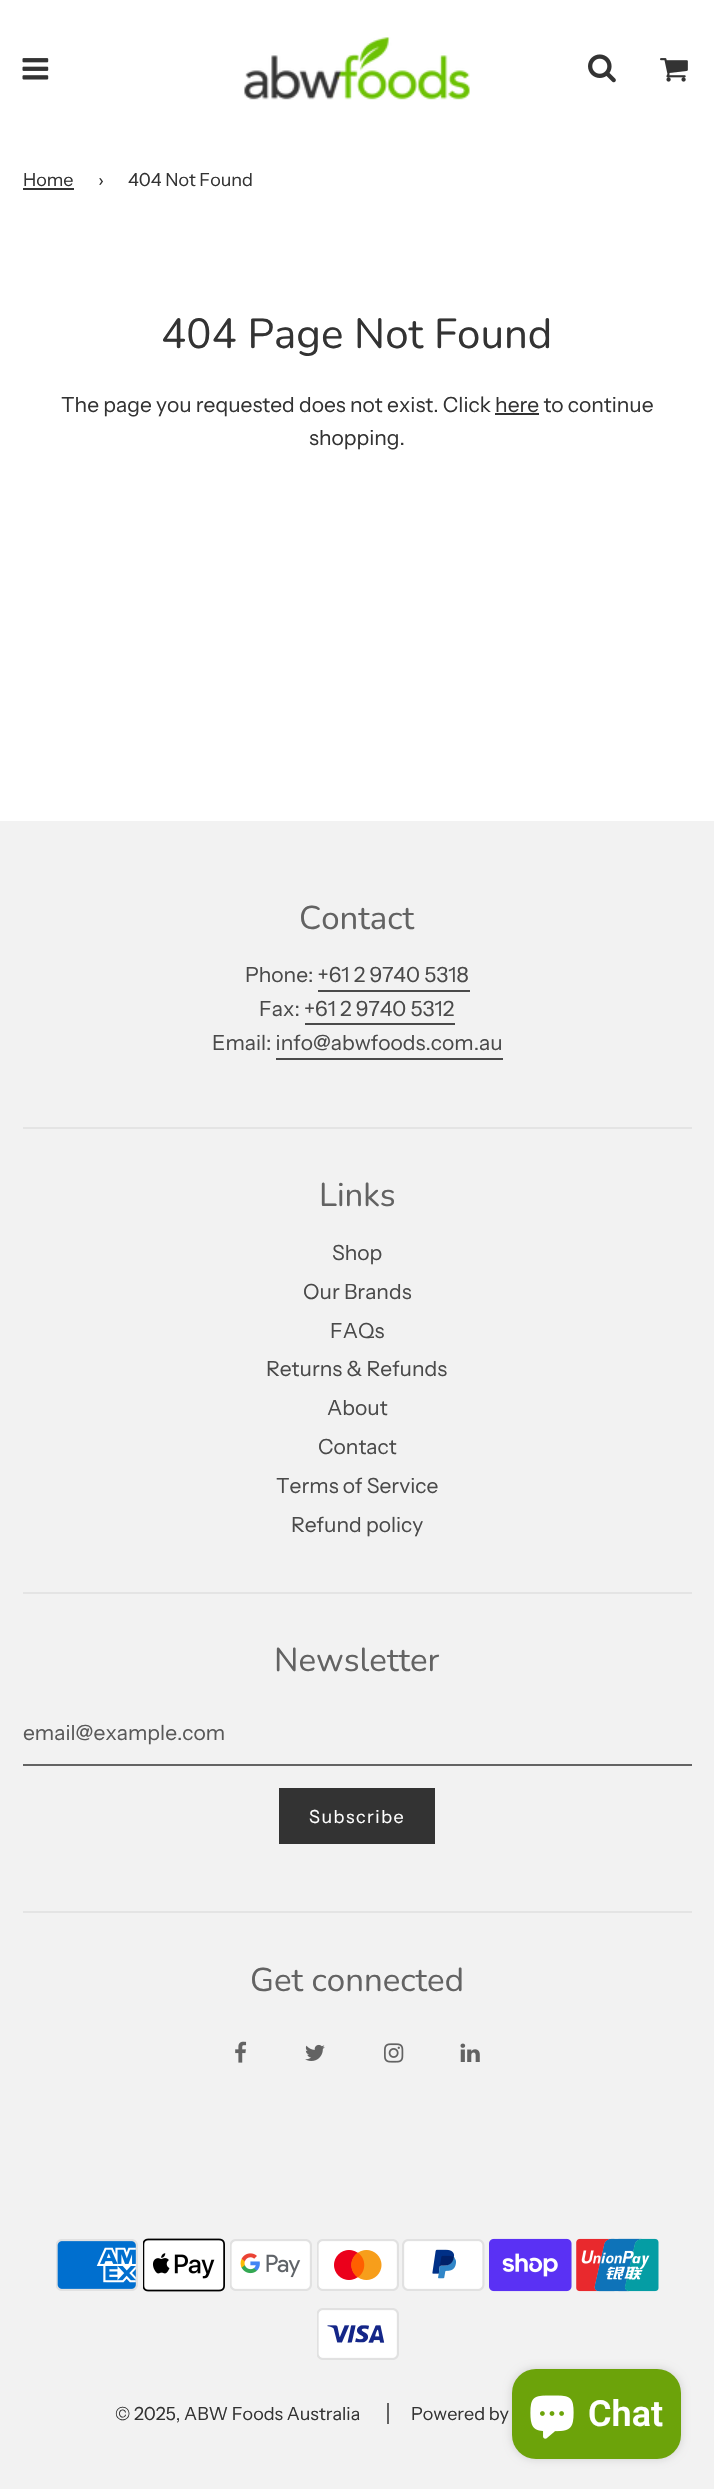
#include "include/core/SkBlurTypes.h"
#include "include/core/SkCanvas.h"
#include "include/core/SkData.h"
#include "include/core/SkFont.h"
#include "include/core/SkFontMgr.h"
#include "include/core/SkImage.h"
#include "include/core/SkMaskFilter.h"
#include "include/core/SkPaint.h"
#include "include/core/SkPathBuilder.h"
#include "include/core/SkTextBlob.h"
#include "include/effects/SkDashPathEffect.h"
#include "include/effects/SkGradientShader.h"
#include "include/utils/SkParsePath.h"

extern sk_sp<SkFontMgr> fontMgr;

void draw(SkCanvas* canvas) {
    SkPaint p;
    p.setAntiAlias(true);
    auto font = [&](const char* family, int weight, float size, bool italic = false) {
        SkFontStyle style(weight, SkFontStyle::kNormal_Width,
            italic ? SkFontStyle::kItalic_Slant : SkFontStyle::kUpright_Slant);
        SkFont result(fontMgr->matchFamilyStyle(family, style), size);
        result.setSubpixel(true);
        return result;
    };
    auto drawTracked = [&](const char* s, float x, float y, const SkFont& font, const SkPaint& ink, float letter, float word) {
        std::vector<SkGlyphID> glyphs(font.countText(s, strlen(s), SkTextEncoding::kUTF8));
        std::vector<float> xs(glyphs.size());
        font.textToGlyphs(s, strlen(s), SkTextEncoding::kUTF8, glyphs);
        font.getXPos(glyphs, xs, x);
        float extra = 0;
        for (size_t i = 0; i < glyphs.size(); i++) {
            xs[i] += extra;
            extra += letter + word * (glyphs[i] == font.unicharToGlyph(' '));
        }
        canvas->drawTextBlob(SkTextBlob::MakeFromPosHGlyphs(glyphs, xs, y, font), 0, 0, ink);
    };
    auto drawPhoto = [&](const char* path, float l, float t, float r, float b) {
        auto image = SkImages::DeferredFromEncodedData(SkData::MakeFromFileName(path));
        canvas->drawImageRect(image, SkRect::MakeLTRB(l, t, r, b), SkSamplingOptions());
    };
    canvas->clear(0xFFFFFFFF);
    drawPhoto("media/1.png", 22, 58, 49, 80);
    drawPhoto("media/2.png", 244, 37, 470, 100);
    drawPhoto("media/3.png", 588, 54, 616, 83);
    drawPhoto("media/4.png", 660, 58, 688, 82);
    auto font1 = font("Instrument Sans", 400, 18);
    p.setColor(0xFF333333);
    canvas->drawString("Home", 23, 186, font1, p);
    canvas->drawRect(SkRect::MakeLTRB(23, 188, 74, 190), p);
    canvas->drawString("›", 98, 186, font1, p);
    canvas->drawString("404 Not Found", 128, 186, font1, p);
    auto font2 = font("Nunito", 400, 42);
    canvas->drawString("404 Page Not Found", 161, 348, font2, p);
    auto font3 = font("Instrument Sans", 400, 21);
    canvas->drawString("The page you requested does not exist. Click here to continue", 61, 412, font3, p);
    canvas->drawRect(SkRect::MakeLTRB(495, 413, 539, 415), p);
    canvas->drawString("shopping.", 309, 445, font3, p);
    p.setColor(0xFFF2F2F2);
    canvas->drawRect(SkRect::MakeLTRB(0, 821, 714, 2489), p);
    auto font4 = font("Nunito", 400, 33);
    p.setColor(0xFF636363);
    canvas->drawString("Contact", 299, 929, font4, p);
    p.setColor(0xFF4A4A4A);
    canvas->drawString("Phone: +61 2 9740 5318", 245, 982, font3, p);
    canvas->drawRect(SkRect::MakeLTRB(318, 990, 470, 992), p);
    canvas->drawString("Fax: +61 2 9740 5312", 259, 1016, font3, p);
    canvas->drawRect(SkRect::MakeLTRB(305, 1023, 455, 1025), p);
    canvas->drawString("Email: info@abwfoods.com.au", 212, 1050, font3, p);
    canvas->drawRect(SkRect::MakeLTRB(276, 1058, 503, 1060), p);
    p.setColor(0xFFE4E4E4);
    canvas->drawRect(SkRect::MakeLTRB(23, 1127, 692, 1129), p);
    p.setColor(0xFF636363);
    canvas->drawString("Links", 319, 1206, font4, p);
    p.setColor(0xFF4A4A4A);
    {
        const struct { const char* s; float x, y; } items[] = {
            {"Shop", 332, 1260},
            {"Our Brands", 303, 1299},
            {"FAQs", 330, 1338},
            {"Returns & Refunds", 266, 1376},
            {"About", 327, 1415},
            {"Contact", 318, 1454},
            {"Terms of Service", 276, 1493},
            {"Refund policy", 291, 1532},
        };
        for (auto [s, x, y] : items) {
            canvas->drawString(s, x, y, font3, p);
        }
    }
    p.setColor(0xFFE4E4E4);
    canvas->drawRect(SkRect::MakeLTRB(23, 1592, 692, 1594), p);
    p.setColor(0xFF636363);
    canvas->drawString("Newsletter", 274, 1671, font4, p);
    canvas->drawRect(SkRect::MakeLTRB(23, 1764, 692, 1766), p);
    p.setColor(0xFF595959);
    canvas->drawString("email@example.com", 23, 1740, font3, p);
    p.setColor(0xFF333333);
    canvas->drawRect(SkRect::MakeLTRB(279, 1788, 435, 1844), p);
    p.setColor(0xFFFFFFFF);
    drawTracked("Subscribe", 309, 1823, font1, p, 1.5f, 0);
    p.setColor(0xFFE4E4E4);
    canvas->drawRect(SkRect::MakeLTRB(23, 1911, 692, 1913), p);
    p.setColor(0xFF636363);
    canvas->drawString("Get connected", 250, 1991, font4, p);
    drawPhoto("media/5.png", 235, 2041, 247, 2063);
    drawPhoto("media/6.png", 305, 2044, 325, 2061);
    drawPhoto("media/7.png", 384, 2043, 404, 2063);
    drawPhoto("media/8.png", 460, 2043, 480, 2062);
    drawPhoto("media/9.png", 56, 2239, 138, 2291);
    drawPhoto("media/10.png", 143, 2238, 225, 2292);
    drawPhoto("media/11.png", 230, 2239, 312, 2291);
    drawPhoto("media/12.png", 317, 2239, 399, 2291);
    drawPhoto("media/13.png", 402, 2239, 485, 2291);
    drawPhoto("media/14.png", 489, 2238, 572, 2292);
    drawPhoto("media/15.png", 576, 2238, 659, 2292);
    drawPhoto("media/16.png", 317, 2308, 399, 2360);
    p.setColor(0xFF333333);
    canvas->drawString("© 2025, ABW Foods Australia", 115, 2420, font1, p);
    p.setColor(0xFF636363);
    canvas->drawRect(SkRect::MakeLTRB(387, 2403, 389, 2424), p);
    p.setColor(0xFF333333);
    canvas->drawString("Powered by", 411, 2420, font1, p);
    p.setColor(0x26000000);
    p.setMaskFilter(SkMaskFilter::MakeBlur(kNormal_SkBlurStyle, 4));
    canvas->drawRoundRect(SkRect::MakeLTRB(512, 2369, 681, 2459), 24, 24, p);
    p.setMaskFilter(nullptr);
    p.setColor(0xFF6CA30A);
    canvas->drawRoundRect(SkRect::MakeLTRB(512, 2369, 681, 2459), 24, 24, p);
    drawPhoto("media/17.png", 530, 2395, 574, 2439);
    auto font5 = font("Roboto", 600, 36);
    p.setColor(0xFFFFFFFF);
    canvas->drawString("Chat", 588, 2426, font5, p);
}
